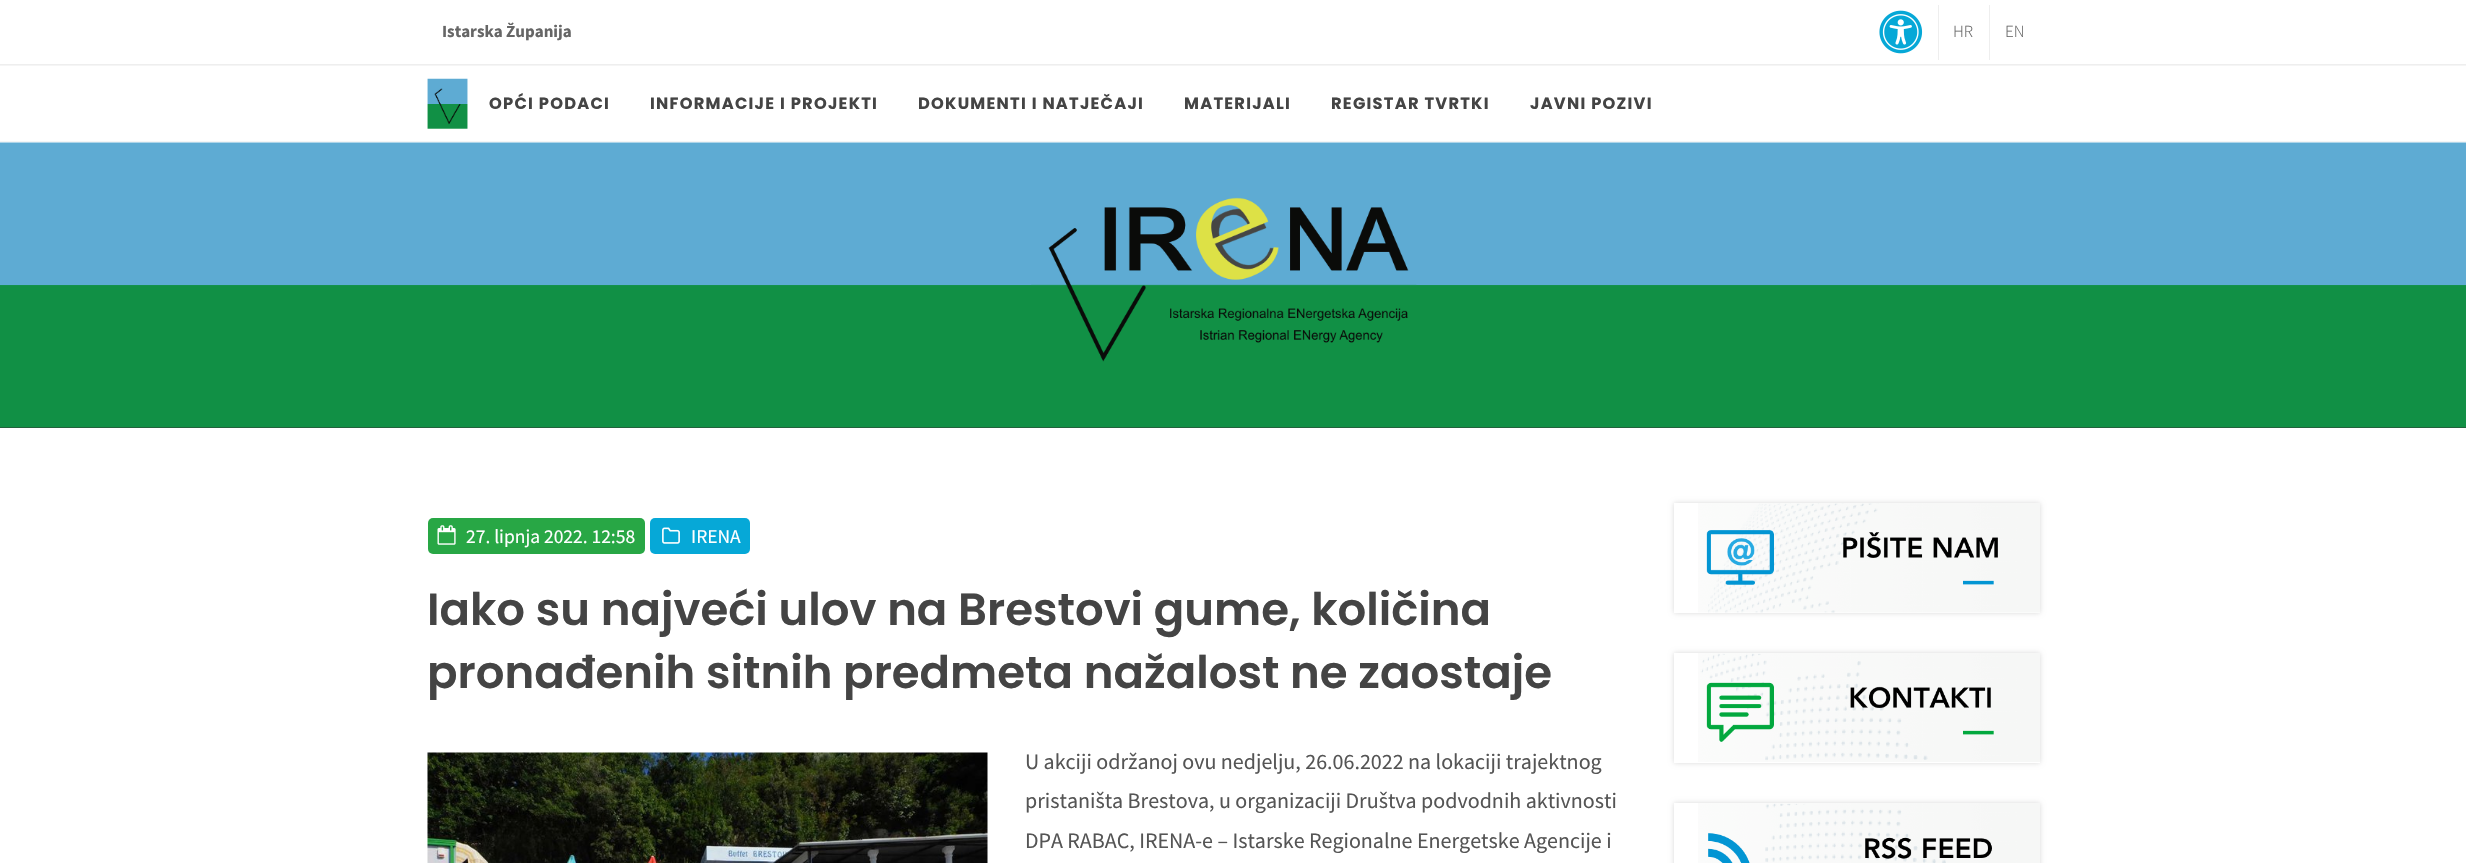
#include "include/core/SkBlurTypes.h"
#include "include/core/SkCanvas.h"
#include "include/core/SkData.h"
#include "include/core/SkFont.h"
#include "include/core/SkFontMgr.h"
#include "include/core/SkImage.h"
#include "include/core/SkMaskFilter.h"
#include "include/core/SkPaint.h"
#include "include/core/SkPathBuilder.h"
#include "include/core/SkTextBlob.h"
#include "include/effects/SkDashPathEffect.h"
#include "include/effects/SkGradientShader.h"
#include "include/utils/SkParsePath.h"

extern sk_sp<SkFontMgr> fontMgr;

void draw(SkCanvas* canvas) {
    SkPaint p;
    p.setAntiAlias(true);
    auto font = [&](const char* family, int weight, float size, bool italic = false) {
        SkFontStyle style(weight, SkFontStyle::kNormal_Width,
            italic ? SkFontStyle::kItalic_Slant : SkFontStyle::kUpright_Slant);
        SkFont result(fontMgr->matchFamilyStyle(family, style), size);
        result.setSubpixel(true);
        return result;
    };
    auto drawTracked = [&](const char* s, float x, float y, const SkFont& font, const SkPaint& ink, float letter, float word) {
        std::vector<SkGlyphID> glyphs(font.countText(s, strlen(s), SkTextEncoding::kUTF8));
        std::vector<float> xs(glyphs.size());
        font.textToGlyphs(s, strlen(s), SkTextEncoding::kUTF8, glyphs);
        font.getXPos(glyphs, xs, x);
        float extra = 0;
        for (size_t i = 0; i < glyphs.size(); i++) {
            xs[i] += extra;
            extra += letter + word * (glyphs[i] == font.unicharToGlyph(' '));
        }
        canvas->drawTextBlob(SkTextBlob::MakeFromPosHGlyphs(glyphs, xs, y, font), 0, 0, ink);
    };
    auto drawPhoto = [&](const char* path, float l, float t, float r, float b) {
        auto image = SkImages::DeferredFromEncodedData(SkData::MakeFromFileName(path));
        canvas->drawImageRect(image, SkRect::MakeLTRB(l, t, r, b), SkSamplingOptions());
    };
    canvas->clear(0xFFFFFFFF);
    p.setColor(0xFFEEEEEE);
    canvas->drawRect(SkRect::MakeLTRB(0, 64, 2466, 65), p);
    auto font1 = font("Source Sans Pro", 700, 17);
    p.setColor(0xFF666666);
    canvas->drawString("Istarska Županija", 442, 37, font1, p);
    drawPhoto("media/1.png", 1879, 10, 1923, 54);
    p.setColor(0xFFEEEEEE);
    canvas->drawRect(SkRect::MakeLTRB(1938, 5, 1939, 60), p);
    auto font2 = font("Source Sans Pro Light", 300, 17);
    p.setColor(0xFF666666);
    canvas->drawString("HR", 1953, 37, font2, p);
    p.setColor(0xFFEEEEEE);
    canvas->drawRect(SkRect::MakeLTRB(1989, 5, 1990, 60), p);
    p.setColor(0xFF666666);
    canvas->drawString("EN", 2005, 37, font2, p);
    p.setColor(0xFFF5F5F5);
    canvas->drawRect(SkRect::MakeLTRB(0, 141, 2466, 142), p);
    canvas->drawRect(SkRect::MakeLTRB(0, 65, 2466, 66), p);
    drawPhoto("media/2.png", 427, 78, 468, 129);
    auto font3 = font("Poppins", 700, 16.25f);
    p.setColor(0xFF444444);
    {
        const struct { const char* s; float x, y; } items[] = {
            {"OPĆI PODACI", 489, 109},
            {"INFORMACIJE I PROJEKTI", 650, 109},
            {"DOKUMENTI I NATJEČAJI", 918, 109},
            {"MATERIJALI", 1184, 109},
            {"REGISTAR TVRTKI", 1331, 109},
            {"JAVNI POZIVI", 1530, 109},
        };
        for (auto [s, x, y] : items) {
            drawTracked(s, x, y, font3, p, 1.25f, 0);
        }
    }
    p.setColor(0xFF333333);
    canvas->drawRect(SkRect::MakeLTRB(0, 427, 2466, 428), p);
    drawPhoto("media/3.png", 0, 142, 2466, 428);
    drawPhoto("media/4.png", 1031, 197, 1417, 362);
    p.setColor(0xFF28A745);
    canvas->drawRoundRect(SkRect::MakeLTRB(428, 518, 645, 554), 5, 5, p);
    drawPhoto("media/5.png", 437, 525, 456, 545);
    auto font4 = font("Source Sans Pro", 400, 19.5f);
    p.setColor(0xFFFFFFFF);
    canvas->drawString("27. lipnja 2022. 12:58", 466, 543, font4, p);
    p.setColor(0xFF06A8D7);
    canvas->drawRoundRect(SkRect::MakeLTRB(650, 518, 750, 554), 5, 5, p);
    drawPhoto("media/6.png", 662, 527, 680, 544);
    p.setColor(0xFFFFFFFF);
    canvas->drawString("IRENA", 691, 543, font4, p);
    auto font5 = font("Poppins", 600, 45);
    p.setColor(0xFF444444);
    canvas->drawString("Iako su najveći ulov na Brestovi gume, količina", 427, 625, font5, p);
    canvas->drawString("pronađenih sitnih predmeta nažalost ne zaostaje", 427, 688, font5, p);
    drawPhoto("media/7.png", 427, 752, 988, 863);
    auto font6 = font("Source Sans Pro", 400, 22);
    p.setColor(0xFF555555);
    {
        const struct { const char* s; float x, y; } items[] = {
            {"U akciji održanoj ovu nedjelju, 26.06.2022 na lokaciji trajektnog", 1025, 769},
            {"pristaništa Brestova, u organizaciji Društva podvodnih aktivnosti", 1025, 808},
            {"DPA RABAC, IRENA-e – Istarske Regionalne Energetske Agencije i", 1025, 848},
        };
        for (auto [s, x, y] : items) {
            canvas->drawString(s, x, y, font6, p);
        }
    }
    canvas->save();
    canvas->clipPath(SkPathBuilder(SkPathFillType::kEvenOdd).moveTo(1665, 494).lineTo(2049, 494).lineTo(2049, 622).lineTo(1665, 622).close().moveTo(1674, 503).lineTo(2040, 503).lineTo(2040, 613).lineTo(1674, 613).close().detach(), true);
    p.setColor(0x26000000);
    p.setMaskFilter(SkMaskFilter::MakeBlur(kNormal_SkBlurStyle, 2.5f));
    canvas->drawRect(SkRect::MakeLTRB(1674, 503, 2040, 613), p);
    p.setMaskFilter(nullptr);
    canvas->restore();
    drawPhoto("media/8.png", 1698, 503, 2040, 613);
    canvas->save();
    canvas->clipPath(SkPathBuilder(SkPathFillType::kEvenOdd).moveTo(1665, 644).lineTo(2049, 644).lineTo(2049, 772).lineTo(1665, 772).close().moveTo(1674, 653).lineTo(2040, 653).lineTo(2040, 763).lineTo(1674, 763).close().detach(), true);
    p.setMaskFilter(SkMaskFilter::MakeBlur(kNormal_SkBlurStyle, 2.5f));
    canvas->drawRect(SkRect::MakeLTRB(1674, 653, 2040, 763), p);
    p.setMaskFilter(nullptr);
    canvas->restore();
    drawPhoto("media/9.png", 1698, 653, 2040, 762);
    canvas->save();
    canvas->clipPath(SkPathBuilder(SkPathFillType::kEvenOdd).moveTo(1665, 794).lineTo(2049, 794).lineTo(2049, 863).lineTo(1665, 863).close().moveTo(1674, 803).lineTo(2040, 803).lineTo(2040, 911).lineTo(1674, 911).close().detach(), true);
    p.setMaskFilter(SkMaskFilter::MakeBlur(kNormal_SkBlurStyle, 2.5f));
    canvas->drawRect(SkRect::MakeLTRB(1674, 803, 2040, 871), p);
    p.setMaskFilter(nullptr);
    canvas->restore();
    drawPhoto("media/10.png", 1698, 803, 2040, 863);
}
